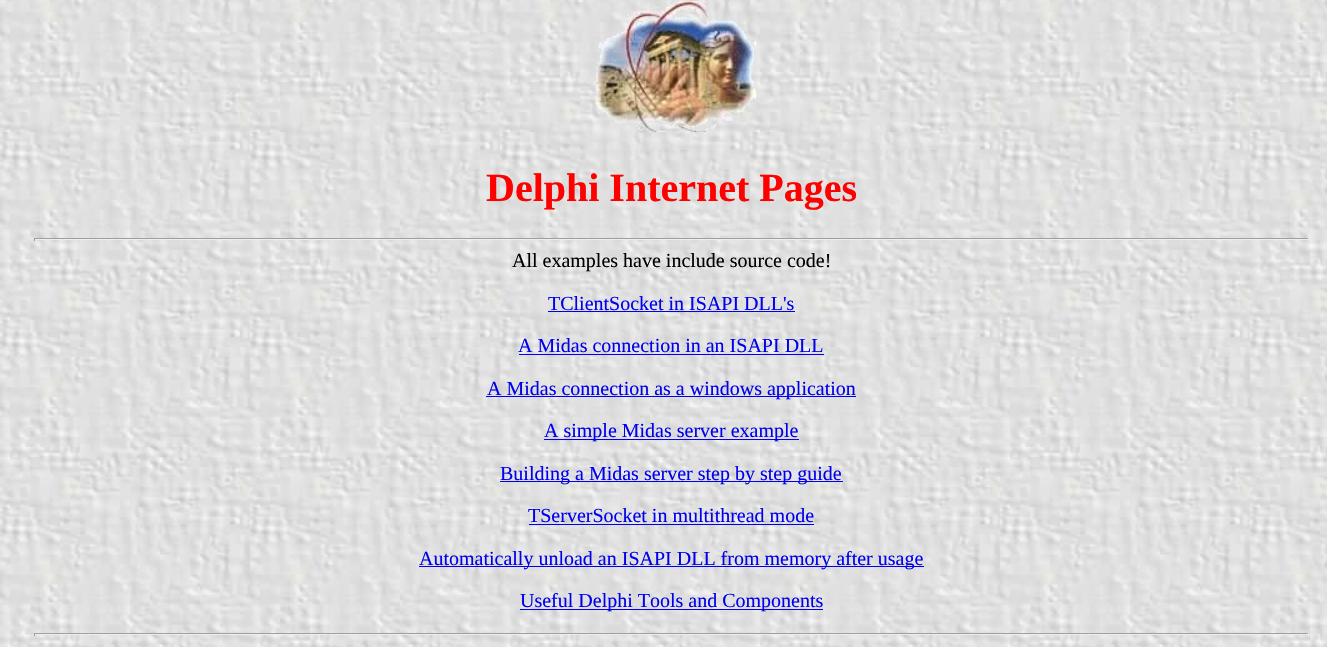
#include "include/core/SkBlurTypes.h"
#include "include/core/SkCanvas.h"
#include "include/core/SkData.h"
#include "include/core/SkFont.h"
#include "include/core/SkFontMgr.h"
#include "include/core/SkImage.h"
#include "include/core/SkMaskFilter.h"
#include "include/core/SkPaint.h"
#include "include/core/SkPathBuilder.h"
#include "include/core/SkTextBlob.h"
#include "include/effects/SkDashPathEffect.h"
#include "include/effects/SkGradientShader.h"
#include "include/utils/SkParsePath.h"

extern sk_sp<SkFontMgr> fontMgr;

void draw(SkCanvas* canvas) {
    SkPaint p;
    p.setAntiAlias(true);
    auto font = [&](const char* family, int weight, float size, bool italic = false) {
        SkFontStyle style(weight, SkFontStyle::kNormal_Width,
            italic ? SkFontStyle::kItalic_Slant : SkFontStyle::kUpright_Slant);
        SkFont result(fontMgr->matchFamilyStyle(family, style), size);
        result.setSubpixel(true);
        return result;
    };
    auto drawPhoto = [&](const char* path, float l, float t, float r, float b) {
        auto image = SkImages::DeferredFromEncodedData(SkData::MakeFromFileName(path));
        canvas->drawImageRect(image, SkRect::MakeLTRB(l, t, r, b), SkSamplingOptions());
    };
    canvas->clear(0xFFFFFFFF);
    drawPhoto("media/1.png", 0, 0, 1327, 647);
    drawPhoto("media/2.png", 593, 0, 757, 136);
    auto font1 = font("Liberation Serif", 700, 40);
    p.setColor(0xFFFF0000);
    canvas->drawString("Delphi Internet Pages", 486, 201, font1, p);
    {
        const struct { float l, t, r, b; SkColor color; } items[] = {
            {34, 238, 1309, 239, 0xFF9F9F9F},
            {1308, 238, 1309, 241, 0xFFEEEEEE},
            {34, 239, 1309, 240, 0xFFEEEEEE},
            {34, 238, 35, 241, 0xFF9F9F9F},
        };
        for (auto [l, t, r, b, color] : items) {
            p.setColor(color);
            canvas->drawRect(SkRect::MakeLTRB(l, t, r, b), p);
        }
    }
    auto font2 = font("Liberation Serif", 400, 20);
    p.setColor(0xFF000000);
    canvas->drawString("All examples have include source code!", 512, 267, font2, p);
    p.setColor(0xFF0000EE);
    canvas->drawString("TClientSocket in ISAPI DLL's", 548, 310, font2, p);
    canvas->drawRect(SkRect::MakeLTRB(548, 311, 795, 312), p);
    canvas->drawString("A Midas connection in an ISAPI DLL", 518, 352, font2, p);
    canvas->drawRect(SkRect::MakeLTRB(519, 354, 824, 355), p);
    canvas->drawRect(SkRect::MakeLTRB(486, 396, 856, 397), p);
    canvas->drawString("A Midas connection as a windows application", 487, 395, font2, p);
    canvas->drawRect(SkRect::MakeLTRB(544, 439, 799, 440), p);
    canvas->drawString("A simple Midas server example", 544, 437, font2, p);
    canvas->drawRect(SkRect::MakeLTRB(500, 481, 843, 482), p);
    canvas->drawString("Building a Midas server step by step guide", 500, 480, font2, p);
    canvas->drawString("TServerSocket in multithread mode", 528, 522, font2, p);
    canvas->drawRect(SkRect::MakeLTRB(529, 524, 814, 525), p);
    canvas->drawRect(SkRect::MakeLTRB(419, 566, 924, 567), p);
    canvas->drawString("Automatically unload an ISAPI DLL from memory after usage", 419, 565, font2, p);
    canvas->drawRect(SkRect::MakeLTRB(520, 609, 823, 610), p);
    canvas->drawString("Useful Delphi Tools and Components", 520, 607, font2, p);
    {
        const struct { float l, t, r, b; SkColor color; } items[] = {
            {34, 633, 1309, 634, 0xFF9F9F9F},
            {1308, 633, 1309, 636, 0xFFEEEEEE},
            {34, 634, 1309, 635, 0xFFEEEEEE},
            {34, 633, 35, 636, 0xFF9F9F9F},
        };
        for (auto [l, t, r, b, color] : items) {
            p.setColor(color);
            canvas->drawRect(SkRect::MakeLTRB(l, t, r, b), p);
        }
    }
}
